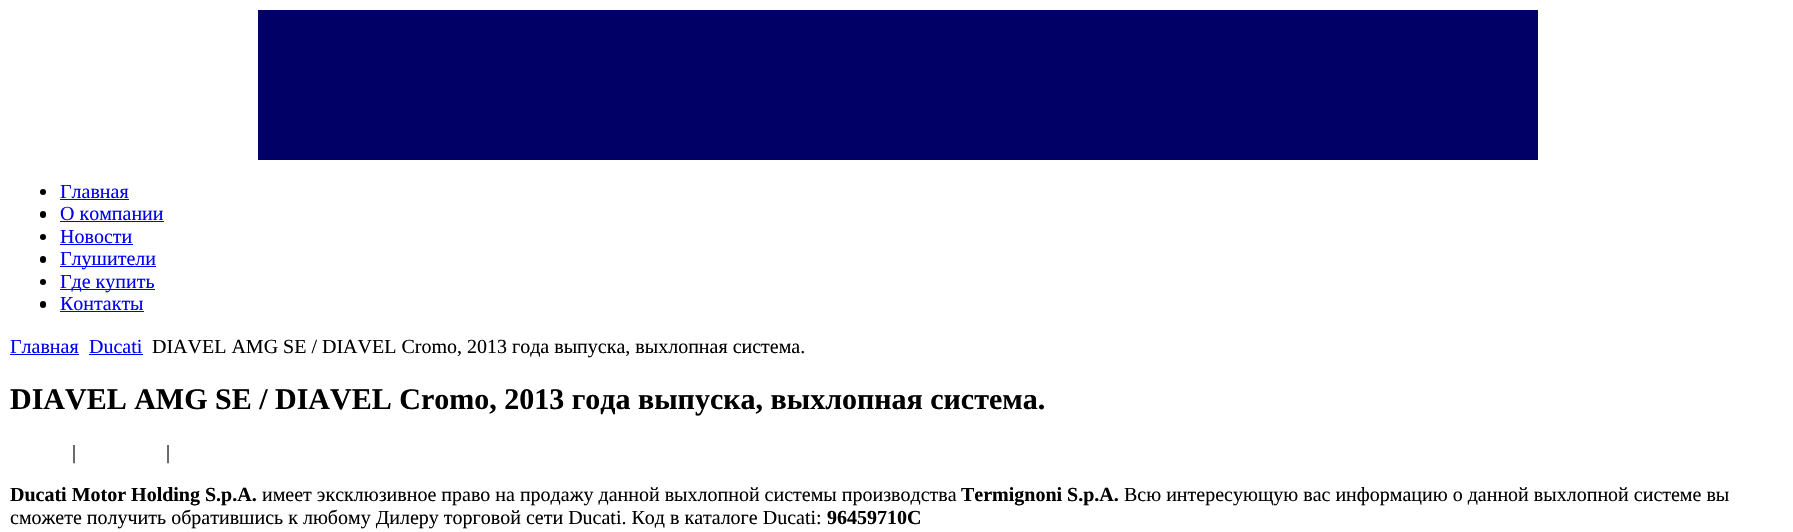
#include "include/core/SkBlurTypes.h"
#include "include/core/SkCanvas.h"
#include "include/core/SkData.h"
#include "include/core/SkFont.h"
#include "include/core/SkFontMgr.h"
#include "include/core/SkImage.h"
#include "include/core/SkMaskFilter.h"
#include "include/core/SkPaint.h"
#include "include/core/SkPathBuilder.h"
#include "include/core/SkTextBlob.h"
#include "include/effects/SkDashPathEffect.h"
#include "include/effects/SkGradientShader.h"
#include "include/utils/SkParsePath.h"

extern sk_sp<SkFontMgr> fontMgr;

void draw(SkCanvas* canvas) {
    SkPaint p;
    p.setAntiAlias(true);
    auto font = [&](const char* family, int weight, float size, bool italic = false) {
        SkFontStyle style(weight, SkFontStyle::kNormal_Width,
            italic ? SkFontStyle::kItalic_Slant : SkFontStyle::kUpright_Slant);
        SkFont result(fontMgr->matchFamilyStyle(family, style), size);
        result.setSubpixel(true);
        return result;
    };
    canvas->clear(0xFFFFFFFF);
    p.setColor(0xFF000066);
    canvas->drawRect(SkRect::MakeLTRB(258, 10, 1538, 160), p);
    p.setColor(0xFF000000);
    canvas->drawCircle(43, 192, 3, p);
    auto font1 = font("Liberation Serif", 400, 20);
    p.setColor(0xFF0000EE);
    canvas->drawString("Главная", 60, 198, font1, p);
    canvas->drawRect(SkRect::MakeLTRB(60, 199, 129, 200), p);
    p.setColor(0xFF000000);
    canvas->drawRoundRect(SkRect::MakeLTRB(40, 211, 46, 218), 3, 3, p);
    p.setColor(0xFF0000EE);
    canvas->drawString("О компании", 60, 220, font1, p);
    canvas->drawRect(SkRect::MakeLTRB(60, 221, 164, 222), p);
    p.setColor(0xFF000000);
    canvas->drawCircle(43, 237, 3, p);
    p.setColor(0xFF0000EE);
    canvas->drawString("Новости", 60, 243, font1, p);
    canvas->drawRect(SkRect::MakeLTRB(60, 244, 133, 245), p);
    p.setColor(0xFF000000);
    canvas->drawRoundRect(SkRect::MakeLTRB(40, 256, 46, 263), 3, 3, p);
    p.setColor(0xFF0000EE);
    canvas->drawRect(SkRect::MakeLTRB(60, 266, 156, 267), p);
    canvas->drawString("Глушители", 60, 265, font1, p);
    p.setColor(0xFF000000);
    canvas->drawCircle(43, 282, 3, p);
    p.setColor(0xFF0000EE);
    canvas->drawRect(SkRect::MakeLTRB(60, 289, 155, 290), p);
    canvas->drawString("Где купить", 60, 288, font1, p);
    p.setColor(0xFF000000);
    canvas->drawRoundRect(SkRect::MakeLTRB(40, 301, 46, 308), 3, 3, p);
    p.setColor(0xFF0000EE);
    canvas->drawString("Контакты", 60, 310, font1, p);
    canvas->drawRect(SkRect::MakeLTRB(60, 311, 144, 312), p);
    canvas->drawString("Главная", 10, 353, font1, p);
    canvas->drawRect(SkRect::MakeLTRB(10, 354, 79, 355), p);
    canvas->drawString("Ducati", 89, 353, font1, p);
    canvas->drawRect(SkRect::MakeLTRB(89, 354, 143, 355), p);
    p.setColor(0xFF000000);
    canvas->drawString("DIAVEL AMG SE / DIAVEL Cromo, 2013 года выпуска, выхлопная система.", 152, 353, font1, p);
    auto font2 = font("Liberation Serif", 700, 30);
    canvas->drawString("DIAVEL AMG SE / DIAVEL Cromo, 2013 года выпуска, выхлопная система.", 10, 409, font2, p);
    canvas->drawString("|", 72, 459, font1, p);
    canvas->drawString("|", 166, 459, font1, p);
    auto font3 = font("Liberation Serif", 700, 20);
    canvas->drawString("Ducati Motor Holding S.p.A.", 10, 501, font3, p);
    canvas->drawString("имеет эксклюзивное право на продажу данной выхлопной системы производства", 262, 501, font1, p);
    canvas->drawString("Termignoni S.p.A.", 961, 501, font3, p);
    canvas->drawString("Всю интересующую вас информацию о данной выхлопной системе вы", 1124, 501, font1, p);
    canvas->drawString("сможете получить обратившись к любому Дилеру торговой сети Ducati. Код в каталоге Ducati:", 10, 524, font1, p);
    canvas->drawString("96459710C", 827, 524, font3, p);
}
